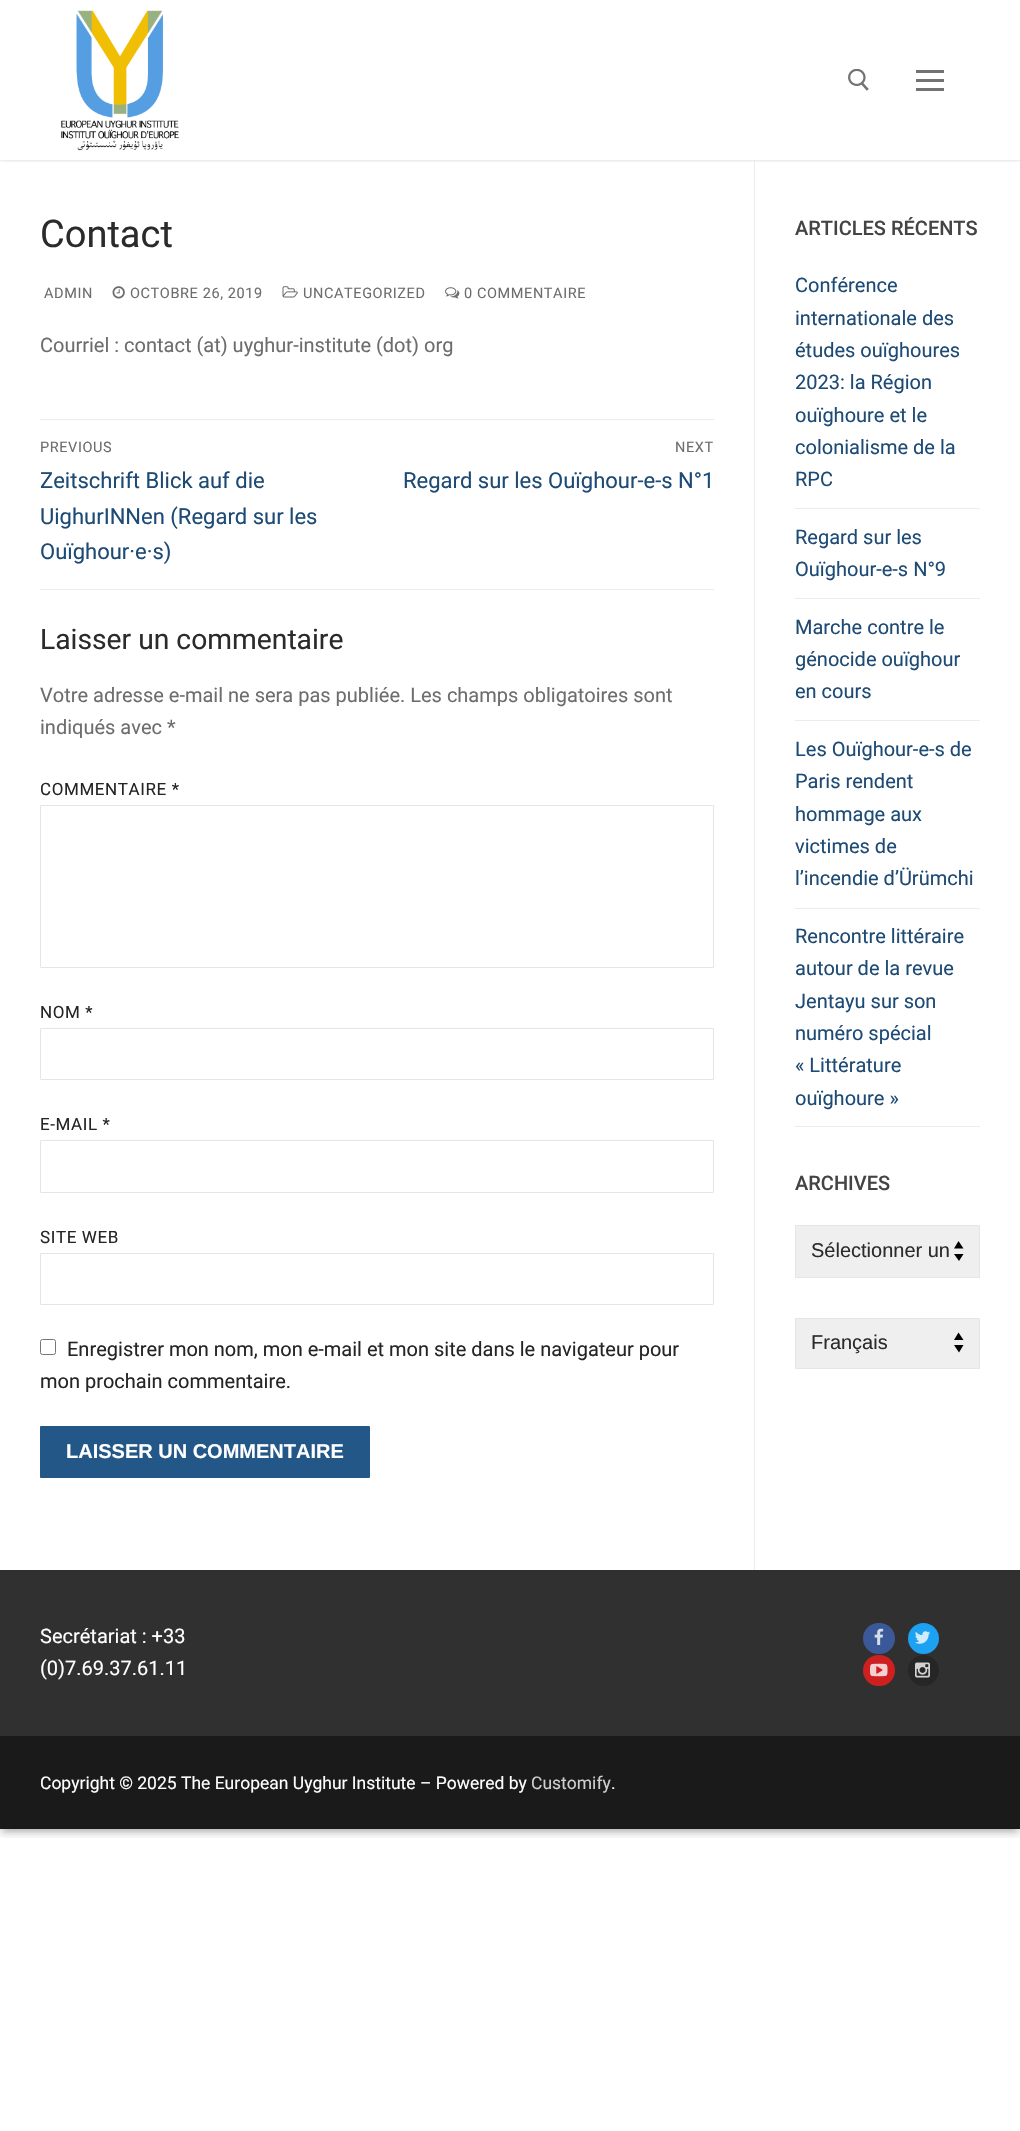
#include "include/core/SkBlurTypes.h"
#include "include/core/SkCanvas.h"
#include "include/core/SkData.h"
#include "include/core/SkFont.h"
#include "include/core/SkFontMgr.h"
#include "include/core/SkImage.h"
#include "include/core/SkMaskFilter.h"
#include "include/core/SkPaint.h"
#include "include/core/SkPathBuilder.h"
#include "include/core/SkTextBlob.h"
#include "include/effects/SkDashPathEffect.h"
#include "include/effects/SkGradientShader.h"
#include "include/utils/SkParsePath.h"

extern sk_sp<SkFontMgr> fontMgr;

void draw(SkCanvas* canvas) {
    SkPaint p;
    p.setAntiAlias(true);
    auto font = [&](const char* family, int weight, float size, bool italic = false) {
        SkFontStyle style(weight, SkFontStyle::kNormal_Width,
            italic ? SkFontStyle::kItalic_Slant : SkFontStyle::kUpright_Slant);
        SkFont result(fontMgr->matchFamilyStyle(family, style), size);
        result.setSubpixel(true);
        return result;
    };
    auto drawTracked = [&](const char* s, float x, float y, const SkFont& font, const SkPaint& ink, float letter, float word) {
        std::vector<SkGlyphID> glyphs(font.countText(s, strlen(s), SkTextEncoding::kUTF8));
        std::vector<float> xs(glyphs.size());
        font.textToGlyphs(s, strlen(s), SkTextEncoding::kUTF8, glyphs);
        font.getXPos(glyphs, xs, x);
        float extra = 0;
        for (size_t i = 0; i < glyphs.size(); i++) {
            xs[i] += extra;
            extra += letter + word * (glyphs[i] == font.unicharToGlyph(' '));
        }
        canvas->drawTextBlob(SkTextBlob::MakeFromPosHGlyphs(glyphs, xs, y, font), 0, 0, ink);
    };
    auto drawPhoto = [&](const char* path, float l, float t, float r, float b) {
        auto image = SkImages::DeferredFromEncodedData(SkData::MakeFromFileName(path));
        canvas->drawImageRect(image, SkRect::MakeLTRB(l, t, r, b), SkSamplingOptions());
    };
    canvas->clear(0xFFFFFFFF);
    canvas->save();
    canvas->clipRect(SkRect::MakeLTRB(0, 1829, 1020, 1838));
    p.setColor(0x3B000000);
    p.setMaskFilter(SkMaskFilter::MakeBlur(kNormal_SkBlurStyle, 4));
    canvas->drawRect(SkRect::MakeLTRB(0, 4, 1020, 1833), p);
    p.setMaskFilter(nullptr);
    canvas->restore();
    canvas->save();
    canvas->clipRect(SkRect::MakeLTRB(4, 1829, 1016, 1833));
    p.setColor(0x29000000);
    p.setMaskFilter(SkMaskFilter::MakeBlur(kNormal_SkBlurStyle, 4));
    canvas->drawRect(SkRect::MakeLTRB(5, 9, 1015, 1828), p);
    p.setMaskFilter(nullptr);
    canvas->restore();
    p.setColor(0xFFEAECEE);
    canvas->drawRect(SkRect::MakeLTRB(754, 160, 755, 1570), p);
    canvas->save();
    canvas->clipRect(SkRect::MakeLTRB(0, 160, 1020, 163));
    p.setColor(0xFFE1E5EA);
    p.setMaskFilter(SkMaskFilter::MakeBlur(kNormal_SkBlurStyle, 1));
    canvas->drawRect(SkRect::MakeLTRB(0, 1, 1020, 161), p);
    p.setMaskFilter(nullptr);
    canvas->restore();
    drawPhoto("media/1.png", 61, 10, 179, 151);
    drawPhoto("media/2.png", 848, 69, 869, 91);
    {
        const struct { float l, t, r, b; SkColor color; } items[] = {
            {916, 79, 944, 82, 0xFF737373},
            {916, 70, 944, 73, 0xFF737373},
            {916, 88, 944, 91, 0xFF737373},
        };
        for (auto [l, t, r, b, color] : items) {
            p.setColor(color);
            canvas->drawRect(SkRect::MakeLTRB(l, t, r, b), p);
        }
    }
    auto font1 = font("Roboto", 400, 38);
    p.setColor(0xFF2B2B2B);
    canvas->drawString("Contact", 40, 247, font1, p);
    auto font2 = font("Roboto", 400, 14.5f);
    p.setColor(0xFF6D6D6D);
    drawTracked("ADMIN", 44, 298, font2, p, 0.6f, 0);
    drawPhoto("media/3.png", 112, 286, 125, 299);
    drawTracked("OCTOBRE 26, 2019", 130, 298, font2, p, 0.6f, 0);
    drawPhoto("media/4.png", 282, 286, 298, 298);
    drawTracked("UNCATEGORIZED", 303, 298, font2, p, 0.6f, 0);
    drawPhoto("media/5.png", 445, 287, 460, 299);
    drawTracked("0 COMMENTAIRE", 464, 298, font2, p, 0.6f, 0);
    auto font3 = font("Roboto", 400, 20);
    canvas->drawString("Courriel : contact (at) uyghur-institute (dot) org", 40, 352, font3, p);
    p.setColor(0xFFEAECEE);
    canvas->drawRect(SkRect::MakeLTRB(40, 419, 714, 420), p);
    canvas->drawRect(SkRect::MakeLTRB(40, 589, 714, 590), p);
    p.setColor(0xFF6D6D6D);
    drawTracked("PREVIOUS", 40, 452, font2, p, 0.6f, 0);
    auto font4 = font("Roboto", 400, 22);
    p.setColor(0xFF1E4B75);
    {
        const struct { const char* s; float x, y; } items[] = {
            {"Zeitschrift Blick auf die", 40, 488},
            {"UighurINNen (Regard sur les", 40, 524},
            {"Ouïghour·e·s)", 40, 559},
        };
        for (auto [s, x, y] : items) {
            canvas->drawString(s, x, y, font4, p);
        }
    }
    p.setColor(0xFF6D6D6D);
    drawTracked("NEXT", 675, 452, font2, p, 0.6f, 0);
    p.setColor(0xFF1E4B75);
    canvas->drawString("Regard sur les Ouïghour-e-s N°1", 403, 488, font4, p);
    auto font5 = font("Roboto", 400, 28.25f);
    p.setColor(0xFF2B2B2B);
    canvas->drawString("Laisser un commentaire", 40, 649, font5, p);
    p.setColor(0xFF6D6D6D);
    canvas->drawString("Votre adresse e-mail ne sera pas publiée. Les champs obligatoires sont", 40, 702, font3, p);
    canvas->drawString("indiqués avec *", 40, 734, font3, p);
    auto font6 = font("Roboto", 400, 17);
    p.setColor(0xFF252525);
    drawTracked("COMMENTAIRE *", 40, 795, font6, p, 0.6f, 0);
    p.setStyle(SkPaint::kStroke_Style);
    p.setStrokeWidth(1);
    p.setColor(0xFFE5E5E5);
    canvas->drawRoundRect(SkRect::MakeLTRB(40.5f, 805.5f, 713.5f, 967.5f), 0.5f, 0.5f, p);
    p.setStyle(SkPaint::kFill_Style);
    p.setColor(0xFF252525);
    drawTracked("NOM *", 40, 1018, font6, p, 0.6f, 0);
    p.setStyle(SkPaint::kStroke_Style);
    p.setColor(0xFFE5E5E5);
    canvas->drawRoundRect(SkRect::MakeLTRB(40.5f, 1028.5f, 713.5f, 1079.5f), 0.5f, 0.5f, p);
    p.setStyle(SkPaint::kFill_Style);
    p.setColor(0xFF252525);
    drawTracked("E-MAIL *", 40, 1130, font6, p, 0.6f, 0);
    p.setStyle(SkPaint::kStroke_Style);
    p.setColor(0xFFE5E5E5);
    canvas->drawRoundRect(SkRect::MakeLTRB(40.5f, 1140.5f, 713.5f, 1192.5f), 0.5f, 0.5f, p);
    p.setStyle(SkPaint::kFill_Style);
    p.setColor(0xFF252525);
    drawTracked("SITE WEB", 40, 1243, font6, p, 0.6f, 0);
    p.setStyle(SkPaint::kStroke_Style);
    p.setColor(0xFFE5E5E5);
    canvas->drawRoundRect(SkRect::MakeLTRB(40.5f, 1253.5f, 713.5f, 1304.5f), 0.5f, 0.5f, p);
    p.setColor(0xFF767676);
    canvas->drawRoundRect(SkRect::MakeLTRB(40.5f, 1339.5f, 55.5f, 1354.5f), 2, 2, p);
    p.setStyle(SkPaint::kFill_Style);
    p.setColor(0xFF252525);
    canvas->drawString("Enregistrer mon nom, mon e-mail et mon site dans le navigateur pour", 67, 1356, font3, p);
    canvas->drawString("mon prochain commentaire.", 40, 1388, font3, p);
    p.setColor(0xFF235787);
    canvas->drawRoundRect(SkRect::MakeLTRB(40, 1426, 370, 1478), 1, 1, p);
    auto font7 = font("Liberation Sans", 700, 20);
    p.setColor(0xFFFFFFFF);
    canvas->drawString("LAISSER UN COMMENTAIRE", 66, 1458, font7, p);
    auto font8 = font("Roboto", 500, 20);
    p.setColor(0xFF444444);
    canvas->drawString("ARTICLES RÉCENTS", 795, 235, font8, p);
    p.setColor(0xFFEAECEE);
    canvas->drawRect(SkRect::MakeLTRB(795, 508, 980, 509), p);
    p.setColor(0xFF1E4B75);
    {
        const struct { const char* s; float x, y; } items[] = {
            {"Conférence", 795, 292},
            {"internationale des", 795, 325},
            {"études ouïghoures", 795, 357},
            {"2023: la Région", 795, 389},
            {"ouïghoure et le", 795, 422},
            {"colonialisme de la", 795, 454},
            {"RPC", 795, 486},
        };
        for (auto [s, x, y] : items) {
            canvas->drawString(s, x, y, font3, p);
        }
    }
    p.setColor(0xFFEAECEE);
    canvas->drawRect(SkRect::MakeLTRB(795, 598, 980, 599), p);
    p.setColor(0xFF1E4B75);
    canvas->drawString("Regard sur les", 795, 544, font3, p);
    canvas->drawString("Ouïghour-e-s N°9", 795, 576, font3, p);
    p.setColor(0xFFEAECEE);
    canvas->drawRect(SkRect::MakeLTRB(795, 720, 980, 721), p);
    p.setColor(0xFF1E4B75);
    {
        const struct { const char* s; float x, y; } items[] = {
            {"Marche contre le", 795, 634},
            {"génocide ouïghour", 795, 666},
            {"en cours", 795, 698},
        };
        for (auto [s, x, y] : items) {
            canvas->drawString(s, x, y, font3, p);
        }
    }
    p.setColor(0xFFEAECEE);
    canvas->drawRect(SkRect::MakeLTRB(795, 908, 980, 909), p);
    p.setColor(0xFF1E4B75);
    {
        const struct { const char* s; float x, y; } items[] = {
            {"Les Ouïghour-e-s de", 795, 756},
            {"Paris rendent", 795, 788},
            {"hommage aux", 795, 821},
            {"victimes de", 795, 853},
            {"l’incendie d’Ürümchi", 795, 885},
        };
        for (auto [s, x, y] : items) {
            canvas->drawString(s, x, y, font3, p);
        }
    }
    p.setColor(0xFFEAECEE);
    canvas->drawRect(SkRect::MakeLTRB(795, 1126, 980, 1127), p);
    p.setColor(0xFF1E4B75);
    {
        const struct { const char* s; float x, y; } items[] = {
            {"Rencontre littéraire", 795, 943},
            {"autour de la revue", 795, 975},
            {"Jentayu sur son", 795, 1008},
            {"numéro spécial", 795, 1040},
            {"« Littérature", 795, 1072},
            {"ouïghoure »", 795, 1105},
        };
        for (auto [s, x, y] : items) {
            canvas->drawString(s, x, y, font3, p);
        }
    }
    p.setColor(0xFF444444);
    canvas->drawString("ARCHIVES", 795, 1190, font8, p);
    p.setColor(0xFFEFEFEF);
    canvas->drawRoundRect(SkRect::MakeLTRB(795, 1225, 980, 1278), 1, 1, p);
    p.setColor(0xFF000000);
    canvas->drawPath(SkPathBuilder().moveTo(958.5f, 1241).lineTo(954, 1248.5f).lineTo(963.5f, 1248.5f).close().moveTo(959, 1261).lineTo(963.5f, 1254).lineTo(954, 1254).close().detach(), p);
    p.setStyle(SkPaint::kStroke_Style);
    p.setColor(0xFFE5E5E5);
    canvas->drawRoundRect(SkRect::MakeLTRB(795.5f, 1225.5f, 979.5f, 1277.5f), 0.5f, 0.5f, p);
    auto font9 = font("Liberation Sans", 400, 20);
    p.setStyle(SkPaint::kFill_Style);
    p.setColor(0xFF2B2B2B);
    canvas->drawString("Sélectionner un", 811, 1257, font9, p);
    p.setColor(0xFFEFEFEF);
    canvas->drawRoundRect(SkRect::MakeLTRB(795, 1318, 980, 1369), 1, 1, p);
    p.setColor(0xFF000000);
    canvas->drawPath(SkPathBuilder().moveTo(958.5f, 1332.5f).lineTo(954, 1340).lineTo(963.5f, 1340).close().moveTo(959, 1352.5f).lineTo(963.5f, 1345).lineTo(954, 1345).close().detach(), p);
    p.setStyle(SkPaint::kStroke_Style);
    p.setColor(0xFFE5E5E5);
    canvas->drawRoundRect(SkRect::MakeLTRB(795.5f, 1318.5f, 979.5f, 1368.5f), 0.5f, 0.5f, p);
    p.setStyle(SkPaint::kFill_Style);
    p.setColor(0xFF2B2B2B);
    canvas->drawString("Français", 811, 1349, font9, p);
    p.setColor(0xFF303030);
    canvas->drawRect(SkRect::MakeLTRB(0, 1570, 1020, 1736), p);
    p.setColor(0xFFFFFFFF);
    canvas->drawString("Secrétariat : +33", 40, 1643, font3, p);
    canvas->drawString("(0)7.69.37.61.11", 40, 1675, font3, p);
    p.setColor(0xFF3B5998);
    canvas->drawRoundRect(SkRect::MakeLTRB(863, 1623, 895, 1654), 15.5f, 15.5f, p);
    drawPhoto("media/6.png", 874, 1628, 884, 1645);
    p.setColor(0xFF1DA1F2);
    canvas->drawCircle(923.5f, 1638.5f, 15.5f, p);
    drawPhoto("media/7.png", 915, 1631, 930, 1644);
    p.setColor(0xFFCD201F);
    canvas->drawRoundRect(SkRect::MakeLTRB(863, 1655, 895, 1686), 15.5f, 15.5f, p);
    drawPhoto("media/8.png", 870, 1663, 888, 1677);
    p.setColor(0xFF262626);
    canvas->drawCircle(923.5f, 1670.5f, 15.5f, p);
    drawPhoto("media/9.png", 915, 1662, 930, 1678);
    p.setColor(0xFF1A1A1A);
    canvas->drawRect(SkRect::MakeLTRB(0, 1736, 1020, 1829), p);
    auto font10 = font("Roboto", 400, 17.5f);
    p.setColor(0xFFFFFFFF);
    canvas->drawString("Copyright © 2025 The European Uyghur Institute – Powered by", 40, 1789, font10, p);
    p.setColor(0xFFCFCFCF);
    canvas->drawString("Customify", 531, 1789, font10, p);
    p.setColor(0xFFFFFFFF);
    canvas->drawString(".", 611, 1789, font10, p);
}
